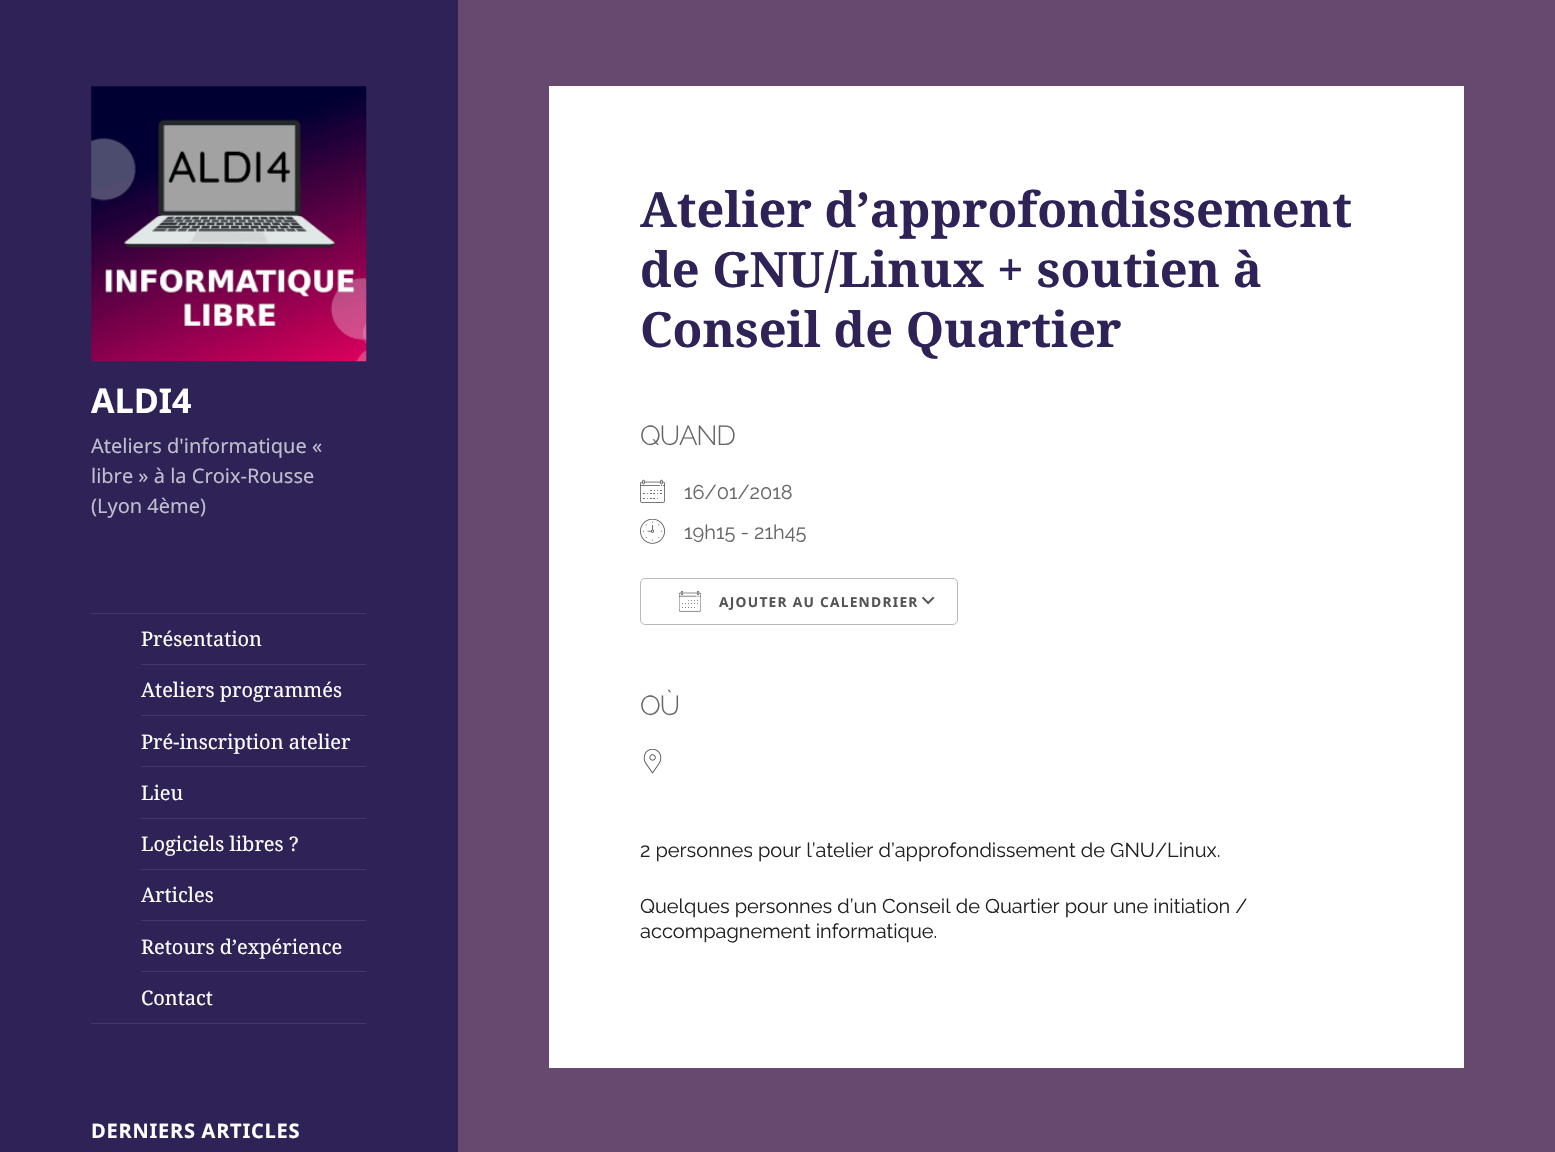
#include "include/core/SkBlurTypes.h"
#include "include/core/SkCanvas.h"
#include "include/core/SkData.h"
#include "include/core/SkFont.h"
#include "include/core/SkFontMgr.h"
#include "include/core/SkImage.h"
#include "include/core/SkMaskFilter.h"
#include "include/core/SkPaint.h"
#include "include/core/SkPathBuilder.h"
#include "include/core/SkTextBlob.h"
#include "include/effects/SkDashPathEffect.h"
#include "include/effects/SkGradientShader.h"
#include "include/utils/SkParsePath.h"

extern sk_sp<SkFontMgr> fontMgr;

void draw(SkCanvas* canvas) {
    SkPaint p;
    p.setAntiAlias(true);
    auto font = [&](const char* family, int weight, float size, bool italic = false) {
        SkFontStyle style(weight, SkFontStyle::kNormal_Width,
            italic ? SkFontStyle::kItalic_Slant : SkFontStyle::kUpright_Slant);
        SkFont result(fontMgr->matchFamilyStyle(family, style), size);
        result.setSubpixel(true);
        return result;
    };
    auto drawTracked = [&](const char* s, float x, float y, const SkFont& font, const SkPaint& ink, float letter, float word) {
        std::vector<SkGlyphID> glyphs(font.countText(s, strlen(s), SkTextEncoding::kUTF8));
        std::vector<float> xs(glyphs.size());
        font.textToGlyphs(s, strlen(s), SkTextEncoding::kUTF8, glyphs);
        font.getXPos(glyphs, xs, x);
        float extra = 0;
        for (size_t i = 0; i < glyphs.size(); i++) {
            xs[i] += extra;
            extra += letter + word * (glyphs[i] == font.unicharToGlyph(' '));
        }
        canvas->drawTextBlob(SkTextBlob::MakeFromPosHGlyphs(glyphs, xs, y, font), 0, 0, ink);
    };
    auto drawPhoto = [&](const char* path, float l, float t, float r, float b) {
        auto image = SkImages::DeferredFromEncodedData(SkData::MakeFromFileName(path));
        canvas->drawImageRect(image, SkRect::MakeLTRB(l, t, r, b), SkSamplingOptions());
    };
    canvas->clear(0xFF674970);
    p.setColor(0xFF2E2256);
    canvas->drawRect(SkRect::MakeLTRB(0, 0, 458, 1152), p);
    drawPhoto("media/1.png", 91, 86, 367, 362);
    auto font1 = font("Noto Sans", 700, 34);
    p.setColor(0xFFFFFFFF);
    canvas->drawString("ALDI4", 91, 413, font1, p);
    auto font2 = font("Noto Sans", 400, 20);
    p.setColor(0xFFC0BDCC);
    {
        const struct { const char* s; float x, y; } items[] = {
            {"Ateliers d'informatique «", 91, 453},
            {"libre » à la Croix-Rousse", 91, 483},
            {"(Lyon 4ème)", 91, 513},
        };
        for (auto [s, x, y] : items) {
            canvas->drawString(s, x, y, font2, p);
        }
    }
    p.setColor(0xFF433867);
    canvas->drawRect(SkRect::MakeLTRB(91, 613, 366, 614), p);
    canvas->drawRect(SkRect::MakeLTRB(91, 1023, 366, 1024), p);
    auto font3 = font("Noto Serif", 400, 20);
    p.setColor(0xFFFFFFFF);
    canvas->drawString("Présentation", 141, 646, font3, p);
    p.setColor(0xFF433867);
    canvas->drawRect(SkRect::MakeLTRB(141, 664, 366, 665), p);
    p.setColor(0xFFFFFFFF);
    canvas->drawString("Ateliers programmés", 141, 697, font3, p);
    p.setColor(0xFF433867);
    canvas->drawRect(SkRect::MakeLTRB(141, 715, 366, 716), p);
    p.setColor(0xFFFFFFFF);
    canvas->drawString("Pré-inscription atelier", 141, 749, font3, p);
    p.setColor(0xFF433867);
    canvas->drawRect(SkRect::MakeLTRB(141, 766, 366, 767), p);
    p.setColor(0xFFFFFFFF);
    canvas->drawString("Lieu", 141, 800, font3, p);
    p.setColor(0xFF433867);
    canvas->drawRect(SkRect::MakeLTRB(141, 818, 366, 819), p);
    p.setColor(0xFFFFFFFF);
    canvas->drawString("Logiciels libres ?", 141, 851, font3, p);
    p.setColor(0xFF433867);
    canvas->drawRect(SkRect::MakeLTRB(141, 869, 366, 870), p);
    p.setColor(0xFFFFFFFF);
    canvas->drawString("Articles", 141, 902, font3, p);
    p.setColor(0xFF433867);
    canvas->drawRect(SkRect::MakeLTRB(141, 920, 366, 921), p);
    p.setColor(0xFFFFFFFF);
    canvas->drawString("Retours d’expérience", 141, 954, font3, p);
    p.setColor(0xFF433867);
    canvas->drawRect(SkRect::MakeLTRB(141, 971, 366, 972), p);
    p.setColor(0xFFFFFFFF);
    canvas->drawString("Contact", 141, 1005, font3, p);
    auto font4 = font("Noto Sans", 700, 20);
    drawTracked("DERNIERS ARTICLES", 91, 1138, font4, p, 0.75f, 0);
    canvas->drawRect(SkRect::MakeLTRB(549, 86, 1464, 1068), p);
    auto font5 = font("Noto Serif", 700, 48.75f);
    p.setColor(0xFF2E2256);
    {
        const struct { const char* s; float x, y; } items[] = {
            {"Atelier d’approfondissement", 640, 227},
            {"de GNU/Linux + soutien à", 640, 287},
            {"Conseil de Quartier", 640, 347},
        };
        for (auto [s, x, y] : items) {
            canvas->drawString(s, x, y, font5, p);
        }
    }
    auto font6 = font("Raleway", 300, 27.5f);
    p.setColor(0xFF666666);
    drawTracked("QUAND", 640, 445, font6, p, -1.25f, 0);
    drawPhoto("media/2.png", 640, 479, 665, 503);
    auto font7 = font("Raleway", 400, 20);
    canvas->drawString("16/01/2018", 684, 499, font7, p);
    drawPhoto("media/3.png", 640, 519, 665, 544);
    canvas->drawString("19h15 - 21h45", 684, 539, font7, p);
    drawPhoto("media/4.png", 921, 597, 935, 605);
    p.setStyle(SkPaint::kStroke_Style);
    p.setStrokeWidth(1);
    p.setColor(0xFFBABABA);
    canvas->drawRoundRect(SkRect::MakeLTRB(640.5f, 578.5f, 957.5f, 624.5f), 4.5f, 4.5f, p);
    drawPhoto("media/5.png", 679, 590, 701, 612);
    auto font8 = font("Noto Sans", 700, 13.75f);
    p.setStyle(SkPaint::kFill_Style);
    p.setColor(0xFF545454);
    drawTracked("AJOUTER AU CALENDRIER", 719, 607, font8, p, 1.25f, 0);
    p.setColor(0xFF666666);
    drawTracked("OÙ", 640, 715, font6, p, -1.25f, 0);
    drawPhoto("media/6.png", 643, 749, 662, 774);
    p.setColor(0xFF212121);
    {
        const struct { const char* s; float x, y; } items[] = {
            {"2 personnes pour l’atelier d’approfondissement de GNU/Linux.", 640, 857},
            {"Quelques personnes d’un Conseil de Quartier pour une initiation /", 640, 913},
            {"accompagnement informatique.", 640, 938},
        };
        for (auto [s, x, y] : items) {
            canvas->drawString(s, x, y, font7, p);
        }
    }
}
